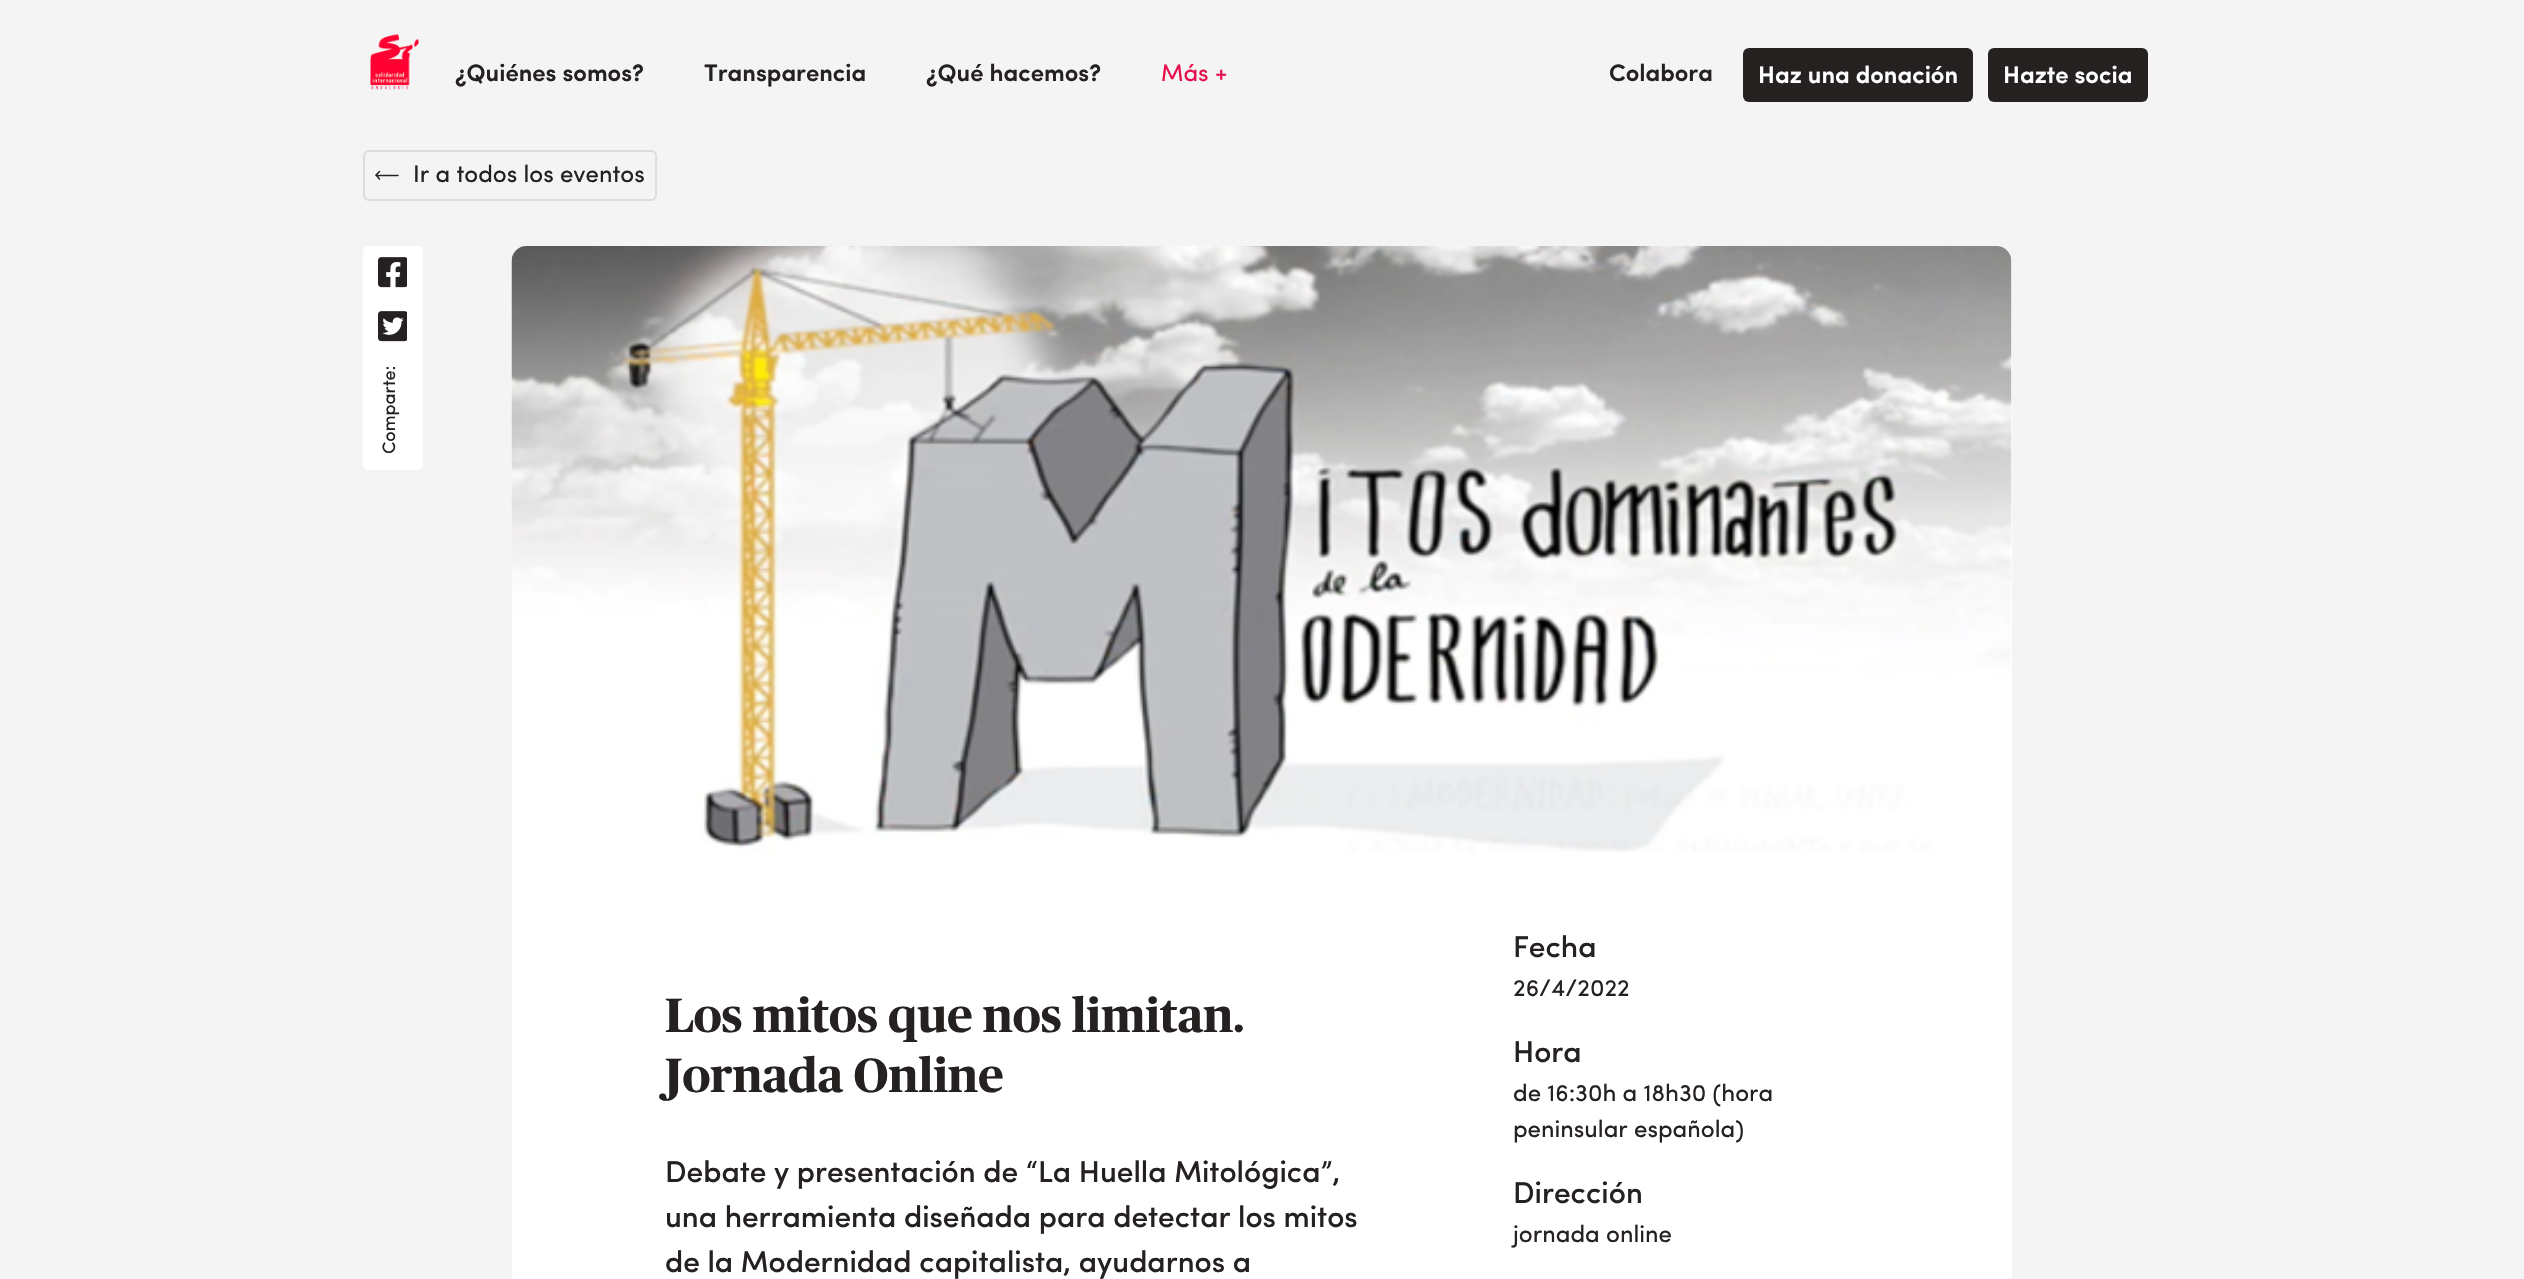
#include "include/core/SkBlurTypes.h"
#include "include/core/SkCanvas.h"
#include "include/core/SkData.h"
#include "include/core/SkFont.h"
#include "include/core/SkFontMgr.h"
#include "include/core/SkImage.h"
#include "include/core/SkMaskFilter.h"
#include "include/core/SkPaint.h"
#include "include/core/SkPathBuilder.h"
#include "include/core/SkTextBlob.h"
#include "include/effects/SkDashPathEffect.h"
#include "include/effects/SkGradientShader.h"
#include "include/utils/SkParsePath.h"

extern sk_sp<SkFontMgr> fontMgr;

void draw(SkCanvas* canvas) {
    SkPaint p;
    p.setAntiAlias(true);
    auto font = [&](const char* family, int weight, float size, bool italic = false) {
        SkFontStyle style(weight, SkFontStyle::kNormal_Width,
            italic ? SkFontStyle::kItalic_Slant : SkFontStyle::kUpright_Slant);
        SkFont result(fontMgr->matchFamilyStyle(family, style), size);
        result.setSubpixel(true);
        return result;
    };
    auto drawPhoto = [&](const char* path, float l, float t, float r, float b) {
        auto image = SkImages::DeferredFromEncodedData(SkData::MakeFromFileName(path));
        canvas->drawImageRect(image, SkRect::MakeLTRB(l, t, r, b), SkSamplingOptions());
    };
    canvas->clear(0xFFF5F4F4);
    drawPhoto("media/1.png", 370, 34, 419, 90);
    auto font1 = font("Sofia", 600, 24);
    p.setColor(0xFF262121);
    {
        const struct { const char* s; float x, y; } items[] = {
            {"¿Quiénes somos?", 455, 81},
            {"Transparencia", 704, 81},
            {"¿Qué hacemos?", 926, 81},
        };
        for (auto [s, x, y] : items) {
            canvas->drawString(s, x, y, font1, p);
        }
    }
    auto font2 = font("Sofia", 400, 24);
    p.setColor(0xFFE7104D);
    canvas->drawString("Más +", 1161, 81, font2, p);
    p.setColor(0xFF262121);
    canvas->drawString("Colabora", 1609, 81, font1, p);
    canvas->drawRoundRect(SkRect::MakeLTRB(1743, 48, 1973, 102), 6, 6, p);
    p.setColor(0xFFFFFFFF);
    canvas->drawString("Haz una donación", 1758, 83, font1, p);
    p.setColor(0xFF262121);
    canvas->drawRoundRect(SkRect::MakeLTRB(1988, 48, 2148, 102), 6, 6, p);
    p.setColor(0xFFFFFFFF);
    canvas->drawString("Hazte socia", 2003, 83, font1, p);
    p.setStyle(SkPaint::kStroke_Style);
    p.setStrokeWidth(2);
    p.setColor(0xFFDFDADB);
    canvas->drawRoundRect(SkRect::MakeLTRB(364, 151, 656, 200), 5, 5, p);
    p.setStrokeWidth(1.5f);
    p.setStrokeCap(SkPaint::kRound_Cap);
    p.setStrokeJoin(SkPaint::kRound_Join);
    p.setColor(0xFF262121);
    canvas->drawPath(SkPathBuilder().moveTo(398, 175.5f).lineTo(376, 175.5f).moveTo(379.5f, 179).lineTo(376, 175).lineTo(379.5f, 171.5f).detach(), p);
    p.setStyle(SkPaint::kFill_Style);
    canvas->drawString("Ir a todos los eventos", 413, 182, font2, p);
    p.setColor(0xFFFFFFFF);
    canvas->drawRoundRect(SkRect::MakeLTRB(363, 246, 423, 470), 5, 5, p);
    drawPhoto("media/2.png", 378, 257, 407, 288);
    drawPhoto("media/3.png", 378, 311, 407, 342);
    auto font3 = font("Sofia", 400, 18);
    p.setColor(0xFF262121);
    canvas->save();
    canvas->rotate(-90, 395, 454);
    canvas->drawString("Comparte:", 395, 454, font3, p);
    canvas->restore();
    p.setColor(0xFFFFFFFF);
    canvas->drawRoundRect(SkRect::MakeLTRB(512, 246, 2012, 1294), 15, 15, p);
    drawPhoto("media/4.png", 511, 246, 2012, 852);
    auto font4 = font("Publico", 700, 48);
    p.setColor(0xFF262121);
    canvas->drawString("Los mitos que nos limitan.", 665, 1032, font4, p);
    canvas->drawString("Jornada Online", 665, 1092, font4, p);
    auto font5 = font("Sofia", 500, 30);
    {
        const struct { const char* s; float x, y; } items[] = {
            {"Debate y presentación de “La Huella Mitológica”,", 665, 1182},
            {"una herramienta diseñada para detectar los mitos", 665, 1227},
            {"de la Modernidad capitalista, ayudarnos a", 665, 1272},
            {"Fecha", 1513, 957},
        };
        for (auto [s, x, y] : items) {
            canvas->drawString(s, x, y, font5, p);
        }
    }
    canvas->drawString("26/4/2022", 1513, 996, font2, p);
    canvas->drawString("Hora", 1513, 1062, font5, p);
    canvas->drawString("de 16:30h a 18h30 (hora", 1513, 1101, font2, p);
    canvas->drawString("peninsular española)", 1513, 1137, font2, p);
    canvas->drawString("Dirección", 1513, 1203, font5, p);
    canvas->drawString("jornada online", 1513, 1242, font2, p);
}
